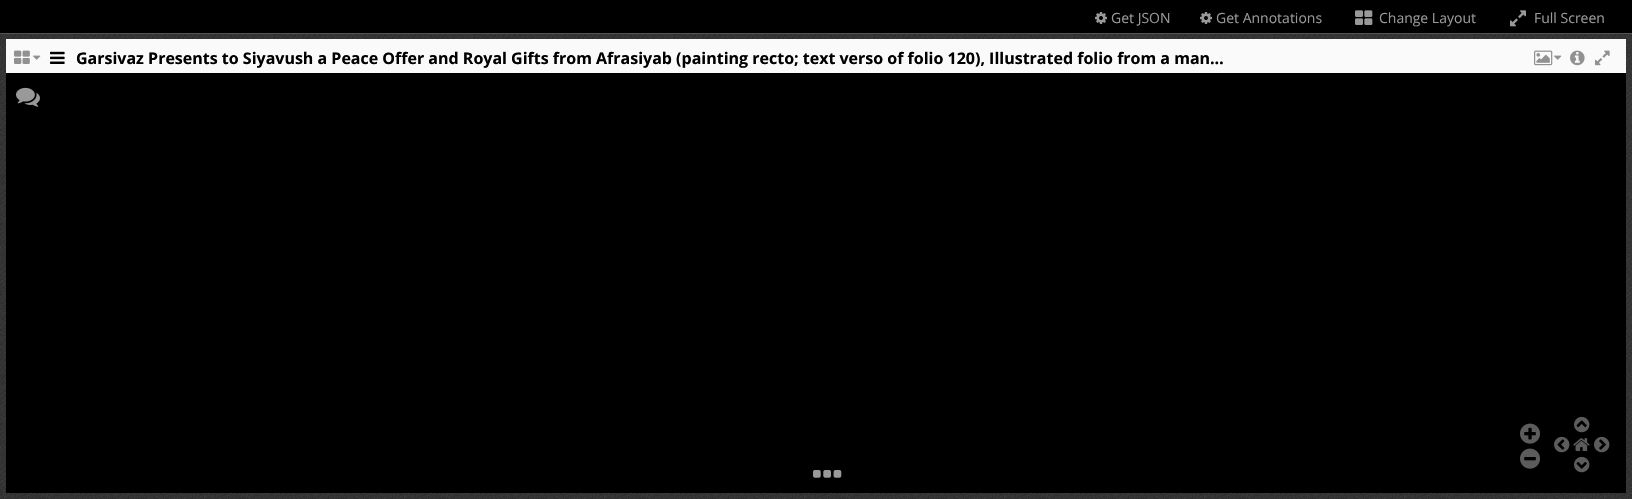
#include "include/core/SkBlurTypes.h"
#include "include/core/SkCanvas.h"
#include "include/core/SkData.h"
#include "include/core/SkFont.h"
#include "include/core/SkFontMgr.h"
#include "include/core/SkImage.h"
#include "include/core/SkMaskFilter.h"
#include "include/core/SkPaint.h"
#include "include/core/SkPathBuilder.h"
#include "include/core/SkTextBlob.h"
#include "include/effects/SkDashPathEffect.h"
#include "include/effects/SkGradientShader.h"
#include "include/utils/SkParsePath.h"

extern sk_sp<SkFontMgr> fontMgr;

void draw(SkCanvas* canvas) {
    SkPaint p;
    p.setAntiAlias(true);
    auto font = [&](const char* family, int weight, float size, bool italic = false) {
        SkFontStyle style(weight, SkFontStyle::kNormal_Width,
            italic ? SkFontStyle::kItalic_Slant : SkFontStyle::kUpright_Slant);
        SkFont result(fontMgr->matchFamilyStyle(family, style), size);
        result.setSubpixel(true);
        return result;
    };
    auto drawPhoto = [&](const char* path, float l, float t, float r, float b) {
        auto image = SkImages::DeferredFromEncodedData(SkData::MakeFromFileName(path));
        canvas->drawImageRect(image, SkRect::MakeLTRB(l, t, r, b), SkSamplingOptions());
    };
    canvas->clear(0xFFFFFFFF);
    drawPhoto("media/1.png", 0, 34, 1632, 499);
    p.setColor(0xFF000000);
    canvas->drawRect(SkRect::MakeLTRB(0, 0, 1632, 33), p);
    p.setColor(0xFF555555);
    canvas->drawRect(SkRect::MakeLTRB(0, 33, 1632, 34), p);
    drawPhoto("media/2.png", 1095, 12, 1107, 24);
    auto font1 = font("Open Sans", 400, 14);
    p.setColor(0xFF999999);
    canvas->drawString("Get JSON", 1111, 23, font1, p);
    drawPhoto("media/2.png", 1200, 12, 1212, 24);
    canvas->drawString("Get Annotations", 1216, 23, font1, p);
    drawPhoto("media/3.png", 1355, 10, 1373, 25);
    canvas->drawString("Change Layout", 1379, 23, font1, p);
    drawPhoto("media/4.png", 1510, 10, 1526, 27);
    canvas->drawString("Full Screen", 1534, 23, font1, p);
    p.setColor(0xFFFAFAFA);
    canvas->drawRect(SkRect::MakeLTRB(6, 39, 1626, 73), p);
    drawPhoto("media/5.png", 14, 50, 30, 64);
    drawPhoto("media/6.png", 33, 55, 41, 60);
    drawPhoto("media/7.png", 50, 51, 65, 64);
    auto font2 = font("Open Sans", 700, 16);
    p.setColor(0xFF000000);
    canvas->drawString("Garsivaz Presents to Siyavush a Peace Offer and Royal Gifts from Afrasiyab (painting recto; text verso of folio 120), Illustrated folio from a man…", 76, 64, font2, p);
    drawPhoto("media/8.png", 1534, 50, 1553, 66);
    drawPhoto("media/6.png", 1554, 55, 1562, 60);
    drawPhoto("media/9.png", 1570, 50, 1585, 66);
    drawPhoto("media/10.png", 1595, 50, 1610, 66);
    canvas->drawRect(SkRect::MakeLTRB(6, 73, 1626, 493), p);
    drawPhoto("media/11.png", 16, 87, 40, 107);
    drawPhoto("media/12.png", 1520, 423, 1540, 444);
    drawPhoto("media/13.png", 1554, 436, 1570, 453);
    drawPhoto("media/14.png", 1574, 416, 1590, 433);
    drawPhoto("media/15.png", 1594, 436, 1610, 453);
    drawPhoto("media/16.png", 1573, 438, 1590, 451);
    drawPhoto("media/17.png", 1520, 448, 1540, 469);
    drawPhoto("media/18.png", 1574, 456, 1590, 473);
    drawPhoto("media/19.png", 813, 470, 842, 478);
}
